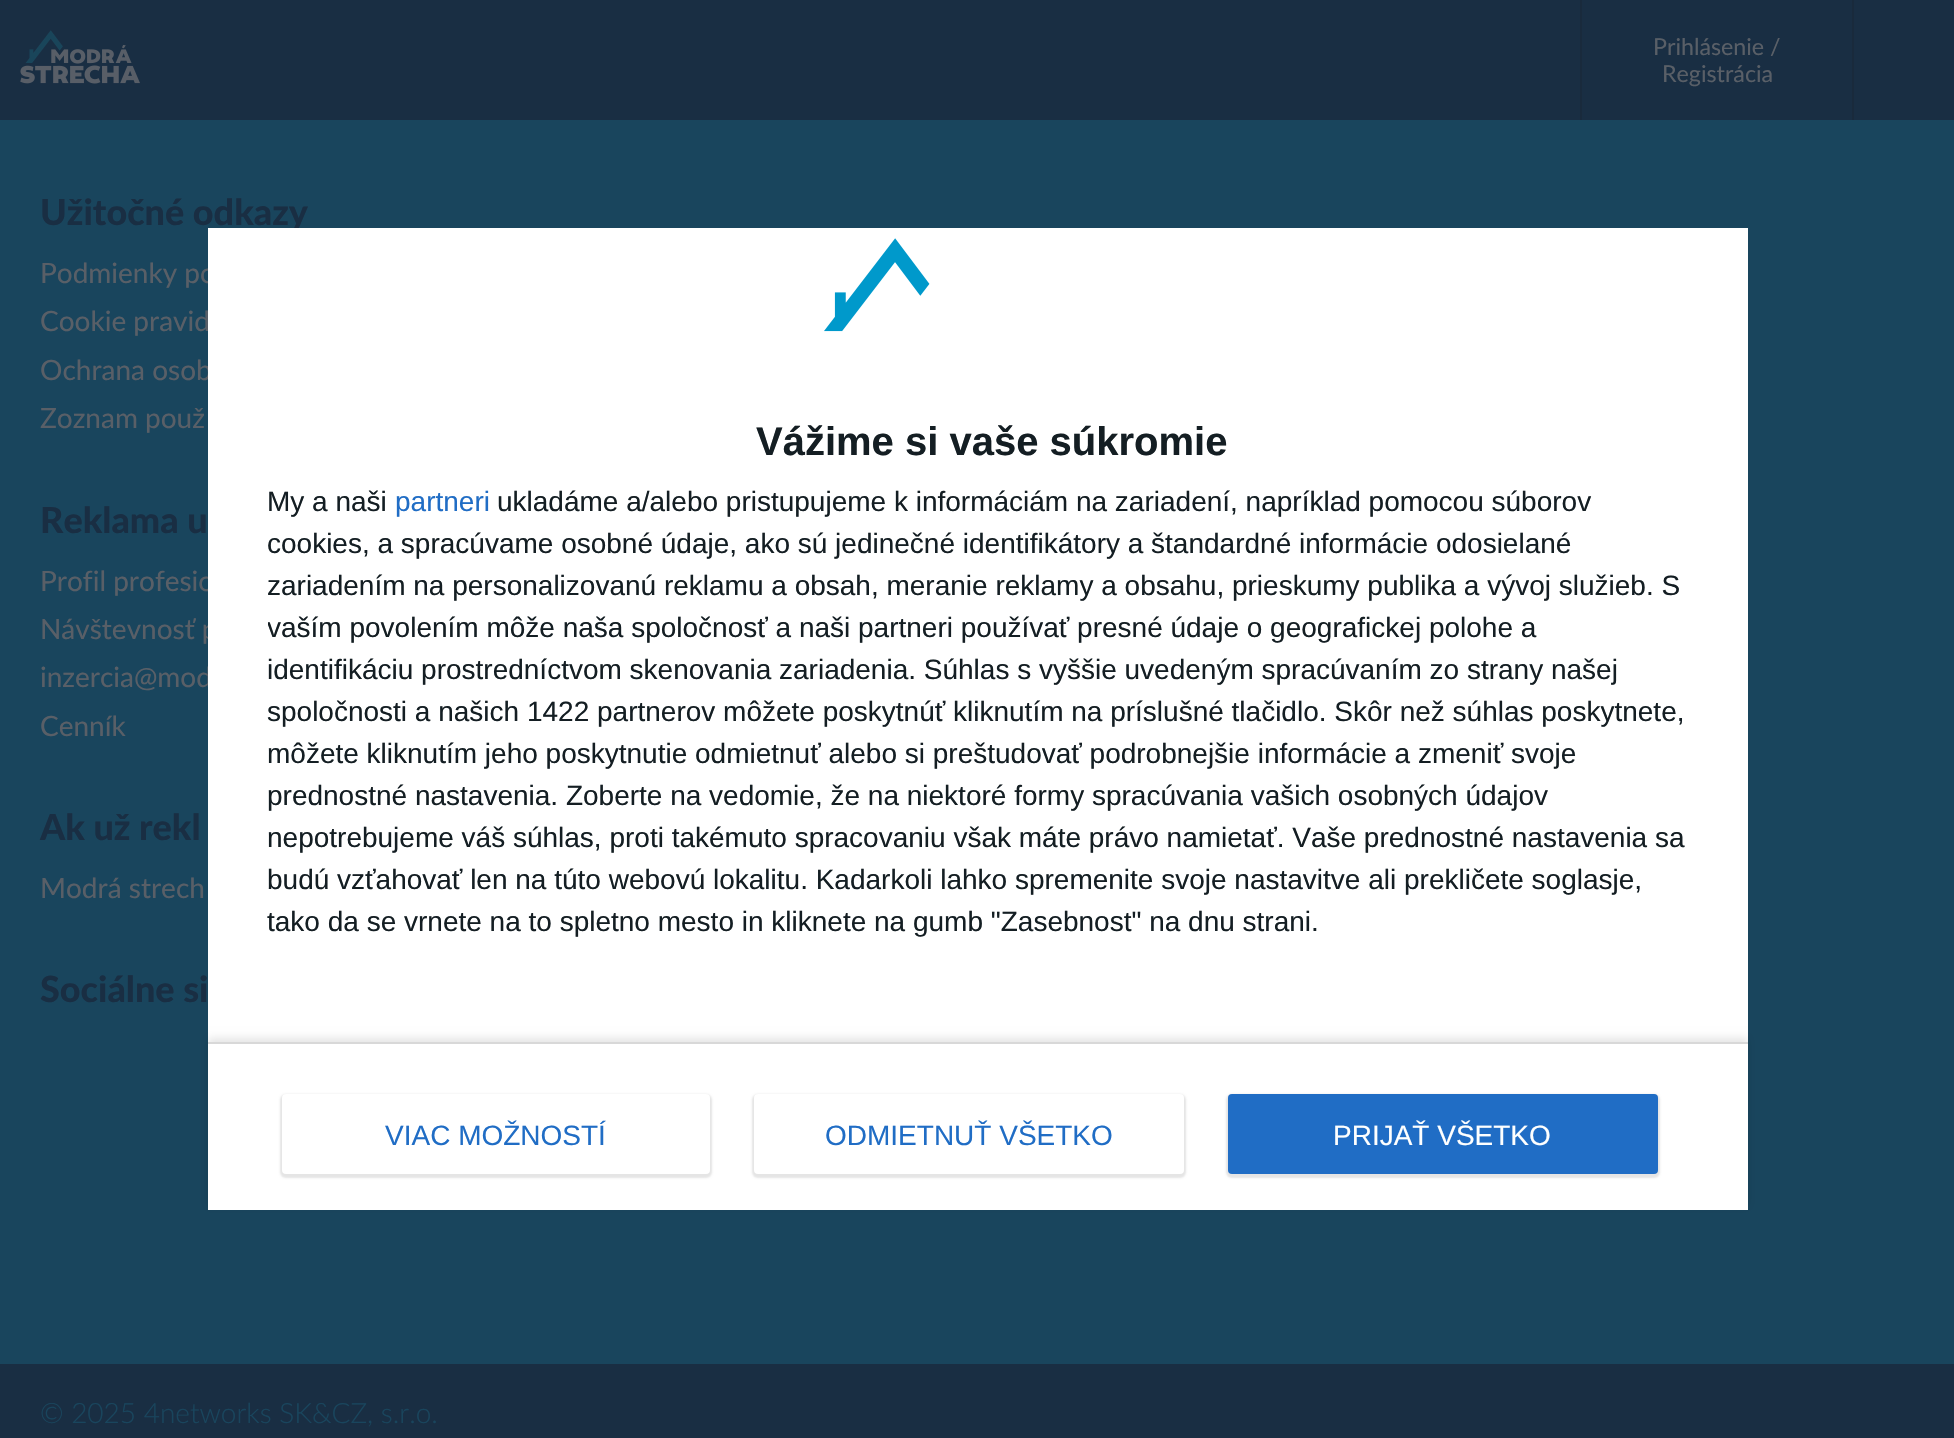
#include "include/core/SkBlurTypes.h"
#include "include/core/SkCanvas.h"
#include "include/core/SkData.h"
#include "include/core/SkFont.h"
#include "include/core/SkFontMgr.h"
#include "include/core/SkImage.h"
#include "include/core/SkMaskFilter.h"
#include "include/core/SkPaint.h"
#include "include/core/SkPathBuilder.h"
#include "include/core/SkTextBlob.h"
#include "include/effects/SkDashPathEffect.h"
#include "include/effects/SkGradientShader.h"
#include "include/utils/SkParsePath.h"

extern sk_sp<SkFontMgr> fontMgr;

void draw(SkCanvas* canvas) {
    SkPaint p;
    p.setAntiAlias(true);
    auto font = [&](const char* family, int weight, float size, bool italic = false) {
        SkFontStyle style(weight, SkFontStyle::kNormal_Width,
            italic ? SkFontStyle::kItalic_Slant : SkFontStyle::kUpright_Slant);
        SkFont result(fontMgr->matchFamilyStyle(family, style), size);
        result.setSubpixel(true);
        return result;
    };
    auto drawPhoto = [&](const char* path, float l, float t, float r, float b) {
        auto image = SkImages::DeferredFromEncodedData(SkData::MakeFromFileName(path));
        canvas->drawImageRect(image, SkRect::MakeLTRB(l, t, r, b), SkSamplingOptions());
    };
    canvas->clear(0xFF19455D);
    p.setColor(0xFF192E43);
    canvas->drawRect(SkRect::MakeLTRB(0, 0, 1954, 120), p);
    drawPhoto("media/1.png", 20, 30, 140, 84);
    p.setColor(0xFF192A3C);
    canvas->drawRect(SkRect::MakeLTRB(1852, 0, 1854, 120), p);
    canvas->drawRect(SkRect::MakeLTRB(1580, 0, 1582, 120), p);
    auto font1 = font("Lato", 400, 23.25f);
    p.setColor(0xFF595F67);
    canvas->drawString("Prihlásenie /", 1653, 55, font1, p);
    canvas->drawString("Registrácia", 1662, 82, font1, p);
    auto font2 = font("Lato", 900, 36);
    p.setColor(0xFF192E43);
    canvas->drawString("Užitočné odkazy", 40, 225, font2, p);
    auto font3 = font("Lato", 400, 28);
    p.setColor(0xFF595F67);
    {
        const struct { const char* s; float x, y; } items[] = {
            {"Podmienky po", 40, 283},
            {"Cookie pravid", 40, 331},
            {"Ochrana osob", 40, 380},
            {"Zoznam použ", 40, 428},
        };
        for (auto [s, x, y] : items) {
            canvas->drawString(s, x, y, font3, p);
        }
    }
    p.setColor(0xFF192E43);
    canvas->drawString("Reklama u", 40, 533, font2, p);
    p.setColor(0xFF595F67);
    {
        const struct { const char* s; float x, y; } items[] = {
            {"Profil profesio", 40, 591},
            {"Návštevnosť p", 40, 639},
            {"inzercia@mod", 40, 687},
            {"Cenník", 40, 736},
        };
        for (auto [s, x, y] : items) {
            canvas->drawString(s, x, y, font3, p);
        }
    }
    p.setColor(0xFF192E43);
    canvas->drawString("Ak už rekl", 40, 840, font2, p);
    p.setColor(0xFF595F67);
    canvas->drawString("Modrá strech", 40, 898, font3, p);
    p.setColor(0xFF192E43);
    canvas->drawString("Sociálne si", 40, 1002, font2, p);
    canvas->drawRect(SkRect::MakeLTRB(0, 1364, 1954, 1438), p);
    auto font4 = font("Lato", 300, 28);
    p.setColor(0xFF19455D);
    canvas->drawString("© 2025 4networks SK&CZ, s.r.o.", 40, 1423, font4, p);
    p.setColor(0xFFFFFFFF);
    canvas->drawRect(SkRect::MakeLTRB(208, 228, 1748, 1210), p);
    drawPhoto("media/2.png", 824, 238, 930, 332);
    auto font5 = font("Liberation Sans", 700, 40);
    p.setColor(0xFF141E23);
    canvas->drawString("Vážime si vaše súkromie", 756, 455, font5, p);
    auto font6 = font("Liberation Sans", 400, 28);
    canvas->drawString("My a naši", 267, 511, font6, p);
    p.setColor(0xFF206DC5);
    canvas->drawString("partneri", 395, 511, font6, p);
    p.setColor(0xFF141E23);
    {
        const struct { const char* s; float x, y; } items[] = {
            {"ukladáme a/alebo pristupujeme k informáciám na zariadení, napríklad pomocou súborov", 497, 511},
            {"cookies, a spracúvame osobné údaje, ako sú jedinečné identifikátory a štandardné informácie odosielané", 267, 553},
            {"zariadením na personalizovanú reklamu a obsah, meranie reklamy a obsahu, prieskumy publika a vývoj služieb. S", 267, 595},
        };
        for (auto [s, x, y] : items) {
            canvas->drawString(s, x, y, font6, p);
        }
    }
    canvas->save();
    canvas->clipRect(SkRect::MakeLTRB(268, 480, 1688, 942));
    canvas->drawString("vaším povolením môže naša spoločnosť a naši partneri používať presné údaje o geografickej polohe a", 267, 637, font6, p);
    canvas->restore();
    {
        const struct { const char* s; float x, y; } items[] = {
            {"identifikáciu prostredníctvom skenovania zariadenia. Súhlas s vyššie uvedeným spracúvaním zo strany našej", 267, 679},
            {"spoločnosti a našich 1422 partnerov môžete poskytnúť kliknutím na príslušné tlačidlo. Skôr než súhlas poskytnete,", 267, 721},
            {"môžete kliknutím jeho poskytnutie odmietnuť alebo si preštudovať podrobnejšie informácie a zmeniť svoje", 267, 763},
            {"prednostné nastavenia. Zoberte na vedomie, že na niektoré formy spracúvania vašich osobných údajov", 267, 805},
            {"nepotrebujeme váš súhlas, proti takémuto spracovaniu však máte právo namietať. Vaše prednostné nastavenia sa", 267, 847},
            {"budú vzťahovať len na túto webovú lokalitu. Kadarkoli lahko spremenite svoje nastavitve ali prekličete soglasje,", 267, 889},
            {"tako da se vrnete na to spletno mesto in kliknete na gumb \"Zasebnost\" na dnu strani.", 267, 931},
        };
        for (auto [s, x, y] : items) {
            canvas->drawString(s, x, y, font6, p);
        }
    }
    canvas->save();
    canvas->clipPath(SkPathBuilder(SkPathFillType::kEvenOdd).moveTo(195, 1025).lineTo(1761, 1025).lineTo(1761, 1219).lineTo(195, 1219).close().moveTo(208, 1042).lineTo(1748, 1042).lineTo(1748, 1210).lineTo(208, 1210).close().detach(), true);
    p.setColor(0x1A000000);
    p.setMaskFilter(SkMaskFilter::MakeBlur(kNormal_SkBlurStyle, 4));
    canvas->drawRect(SkRect::MakeLTRB(208, 1038, 1748, 1206), p);
    p.setMaskFilter(nullptr);
    canvas->restore();
    p.setColor(0xFFD8D8D8);
    canvas->drawRect(SkRect::MakeLTRB(208, 1042, 1748, 1044), p);
    p.setColor(0x1A000000);
    p.setMaskFilter(SkMaskFilter::MakeBlur(kNormal_SkBlurStyle, 1));
    canvas->drawRoundRect(SkRect::MakeLTRB(280, 1094, 712, 1178), 6, 6, p);
    p.setMaskFilter(nullptr);
    p.setColor(0xFFFFFFFF);
    canvas->drawRoundRect(SkRect::MakeLTRB(282, 1094, 710, 1174), 4, 4, p);
    p.setColor(0xFF206DC5);
    canvas->drawString("VIAC MOŽNOSTÍ", 385, 1145, font6, p);
    p.setColor(0x1A000000);
    p.setMaskFilter(SkMaskFilter::MakeBlur(kNormal_SkBlurStyle, 1));
    canvas->drawRoundRect(SkRect::MakeLTRB(752, 1094, 1186, 1178), 6, 6, p);
    p.setMaskFilter(nullptr);
    p.setColor(0xFFFFFFFF);
    canvas->drawRoundRect(SkRect::MakeLTRB(754, 1094, 1184, 1174), 4, 4, p);
    p.setColor(0xFF206DC5);
    canvas->drawString("ODMIETNUŤ VŠETKO", 825, 1145, font6, p);
    p.setColor(0x1A000000);
    p.setMaskFilter(SkMaskFilter::MakeBlur(kNormal_SkBlurStyle, 1));
    canvas->drawRoundRect(SkRect::MakeLTRB(1226, 1094, 1660, 1178), 6, 6, p);
    p.setMaskFilter(nullptr);
    p.setColor(0xFF206DC5);
    canvas->drawRoundRect(SkRect::MakeLTRB(1228, 1094, 1658, 1174), 4, 4, p);
    p.setColor(0xFFFEFFFF);
    canvas->drawString("PRIJAŤ VŠETKO", 1333, 1145, font6, p);
}
